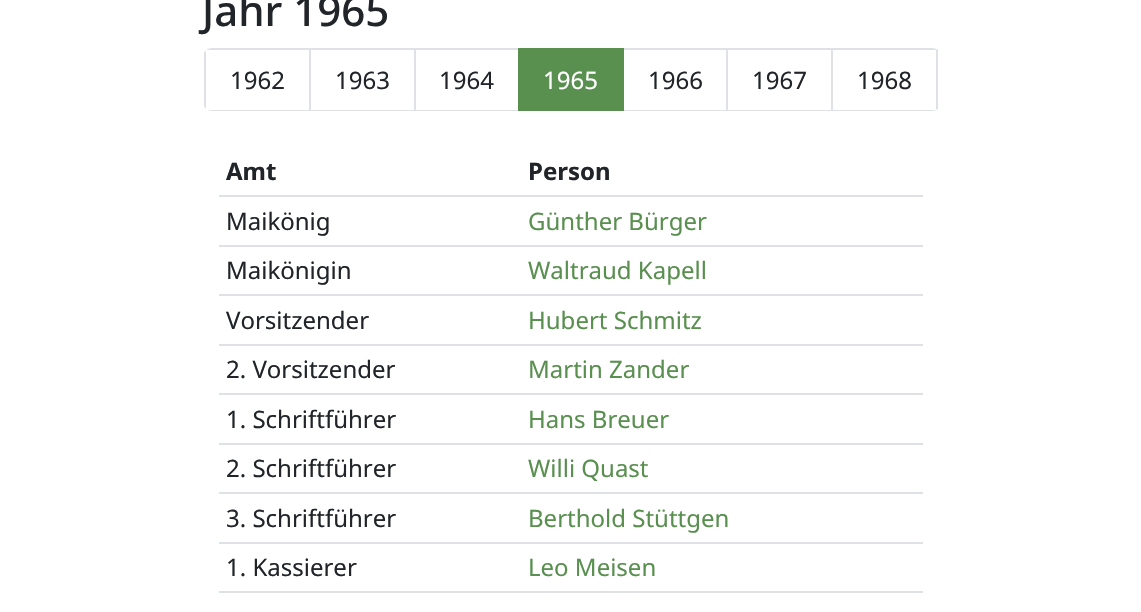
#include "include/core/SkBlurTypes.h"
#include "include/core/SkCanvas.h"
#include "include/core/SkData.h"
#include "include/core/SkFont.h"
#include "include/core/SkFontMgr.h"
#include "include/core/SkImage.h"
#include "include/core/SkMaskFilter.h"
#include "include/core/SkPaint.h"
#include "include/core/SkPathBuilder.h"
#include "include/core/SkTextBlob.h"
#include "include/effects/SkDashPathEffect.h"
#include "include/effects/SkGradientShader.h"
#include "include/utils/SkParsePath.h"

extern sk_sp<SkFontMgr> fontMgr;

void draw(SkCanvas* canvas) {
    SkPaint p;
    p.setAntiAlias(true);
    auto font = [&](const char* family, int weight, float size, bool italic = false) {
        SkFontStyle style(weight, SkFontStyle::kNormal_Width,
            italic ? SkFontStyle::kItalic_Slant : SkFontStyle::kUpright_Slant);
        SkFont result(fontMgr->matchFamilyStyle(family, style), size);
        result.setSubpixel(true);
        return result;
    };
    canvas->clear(0xFFFFFFFF);
    auto font1 = font("Noto Sans", 500, 42);
    p.setColor(0xFF212529);
    canvas->drawString("Jahr 1965", 202, 26, font1, p);
    canvas->save();
    canvas->clipPath(SkPathBuilder().moveTo(212, 48).lineTo(932, 48).cubicTo(937, 48, 941, 52, 941, 57).lineTo(941, 102).cubicTo(941, 107, 937, 111, 932, 111).lineTo(212, 111).cubicTo(207, 111, 203, 107, 203, 102).lineTo(203, 57).cubicTo(203, 52, 207, 48, 212, 48).close().detach(), true);
    p.setColor(0xFFDEE2E6);
    canvas->drawRect(SkRect::MakeLTRB(204, 48, 206, 111), p);
    canvas->drawRect(SkRect::MakeLTRB(206, 48, 311, 50), p);
    canvas->restore();
    canvas->drawRect(SkRect::MakeLTRB(309, 48, 311, 111), p);
    canvas->save();
    canvas->clipPath(SkPathBuilder().moveTo(212, 48).lineTo(932, 48).cubicTo(937, 48, 941, 52, 941, 57).lineTo(941, 102).cubicTo(941, 107, 937, 111, 932, 111).lineTo(212, 111).cubicTo(207, 111, 203, 107, 203, 102).lineTo(203, 57).cubicTo(203, 52, 207, 48, 212, 48).close().detach(), true);
    canvas->drawRect(SkRect::MakeLTRB(206, 110, 311, 111), p);
    canvas->restore();
    auto font2 = font("Noto Sans", 400, 24);
    p.setColor(0xFF212529);
    canvas->drawString("1962", 230, 89, font2, p);
    {
        const struct { float l, t, r, b; SkColor color; } items[] = {
            {311, 48, 519, 50, 0xFFDEE2E6},
            {414, 48, 416, 111, 0xFFDEE2E6},
            {311, 110, 519, 111, 0xFFDEE2E6},
        };
        for (auto [l, t, r, b, color] : items) {
            p.setColor(color);
            canvas->drawRect(SkRect::MakeLTRB(l, t, r, b), p);
        }
    }
    p.setColor(0xFF212529);
    canvas->drawString("1963", 335, 89, font2, p);
    canvas->drawString("1964", 439, 89, font2, p);
    p.setColor(0xFF598F4F);
    canvas->drawRect(SkRect::MakeLTRB(518, 48, 624, 111), p);
    p.setColor(0xFFFFFFFF);
    canvas->drawString("1965", 543, 89, font2, p);
    {
        const struct { float l, t, r, b; SkColor color; } items[] = {
            {624, 48, 833, 50, 0xFFDEE2E6},
            {726, 48, 728, 111, 0xFFDEE2E6},
            {624, 110, 728, 111, 0xFFDEE2E6},
        };
        for (auto [l, t, r, b, color] : items) {
            p.setColor(color);
            canvas->drawRect(SkRect::MakeLTRB(l, t, r, b), p);
        }
    }
    p.setColor(0xFF212529);
    canvas->drawString("1966", 648, 89, font2, p);
    p.setColor(0xFFDEE2E6);
    canvas->drawRect(SkRect::MakeLTRB(831, 48, 833, 111), p);
    canvas->drawRect(SkRect::MakeLTRB(728, 110, 833, 111), p);
    p.setColor(0xFF212529);
    canvas->drawString("1967", 752, 89, font2, p);
    canvas->save();
    canvas->clipPath(SkPathBuilder().moveTo(212, 48).lineTo(932, 48).cubicTo(937, 48, 941, 52, 941, 57).lineTo(941, 102).cubicTo(941, 107, 937, 111, 932, 111).lineTo(212, 111).cubicTo(207, 111, 203, 107, 203, 102).lineTo(203, 57).cubicTo(203, 52, 207, 48, 212, 48).close().detach(), true);
    {
        const struct { float l, t, r, b; SkColor color; } items[] = {
            {833, 48, 938, 50, 0xFFDEE2E6},
            {936, 48, 938, 111, 0xFFDEE2E6},
            {833, 110, 938, 111, 0xFFDEE2E6},
        };
        for (auto [l, t, r, b, color] : items) {
            p.setColor(color);
            canvas->drawRect(SkRect::MakeLTRB(l, t, r, b), p);
        }
    }
    canvas->restore();
    p.setColor(0xFF212529);
    canvas->drawString("1968", 857, 89, font2, p);
    auto font3 = font("Noto Sans", 700, 24);
    canvas->drawString("Amt", 226, 180, font3, p);
    p.setColor(0xFFDEE2E6);
    canvas->drawRect(SkRect::MakeLTRB(219, 195, 923, 197), p);
    p.setColor(0xFF212529);
    canvas->drawString("Person", 528, 180, font3, p);
    canvas->drawString("Maikönig", 226, 230, font2, p);
    p.setColor(0xFFDEE2E6);
    canvas->drawRect(SkRect::MakeLTRB(219, 245, 923, 247), p);
    p.setColor(0xFF598F4F);
    canvas->drawString("Günther Bürger", 528, 230, font2, p);
    p.setColor(0xFF212529);
    canvas->drawString("Maikönigin", 226, 279, font2, p);
    p.setColor(0xFFDEE2E6);
    canvas->drawRect(SkRect::MakeLTRB(219, 294, 923, 296), p);
    p.setColor(0xFF598F4F);
    canvas->drawString("Waltraud Kapell", 528, 279, font2, p);
    p.setColor(0xFF212529);
    canvas->drawString("Vorsitzender", 226, 329, font2, p);
    p.setColor(0xFFDEE2E6);
    canvas->drawRect(SkRect::MakeLTRB(219, 344, 923, 346), p);
    p.setColor(0xFF598F4F);
    canvas->drawString("Hubert Schmitz", 528, 329, font2, p);
    p.setColor(0xFF212529);
    canvas->drawString("2. Vorsitzender", 226, 378, font2, p);
    p.setColor(0xFFDEE2E6);
    canvas->drawRect(SkRect::MakeLTRB(219, 393, 923, 395), p);
    p.setColor(0xFF598F4F);
    canvas->drawString("Martin Zander", 528, 378, font2, p);
    p.setColor(0xFF212529);
    canvas->drawString("1. Schriftführer", 226, 428, font2, p);
    p.setColor(0xFFDEE2E6);
    canvas->drawRect(SkRect::MakeLTRB(219, 443, 923, 445), p);
    p.setColor(0xFF598F4F);
    canvas->drawString("Hans Breuer", 528, 428, font2, p);
    p.setColor(0xFF212529);
    canvas->drawString("2. Schriftführer", 226, 477, font2, p);
    p.setColor(0xFFDEE2E6);
    canvas->drawRect(SkRect::MakeLTRB(219, 492, 923, 494), p);
    p.setColor(0xFF598F4F);
    canvas->drawString("Willi Quast", 528, 477, font2, p);
    p.setColor(0xFF212529);
    canvas->drawString("3. Schriftführer", 226, 527, font2, p);
    p.setColor(0xFFDEE2E6);
    canvas->drawRect(SkRect::MakeLTRB(219, 542, 923, 544), p);
    p.setColor(0xFF598F4F);
    canvas->drawString("Berthold Stüttgen", 528, 527, font2, p);
    p.setColor(0xFF212529);
    canvas->drawString("1. Kassierer", 226, 576, font2, p);
    p.setColor(0xFFDEE2E6);
    canvas->drawRect(SkRect::MakeLTRB(219, 591, 923, 593), p);
    p.setColor(0xFF598F4F);
    canvas->drawString("Leo Meisen", 528, 576, font2, p);
}
